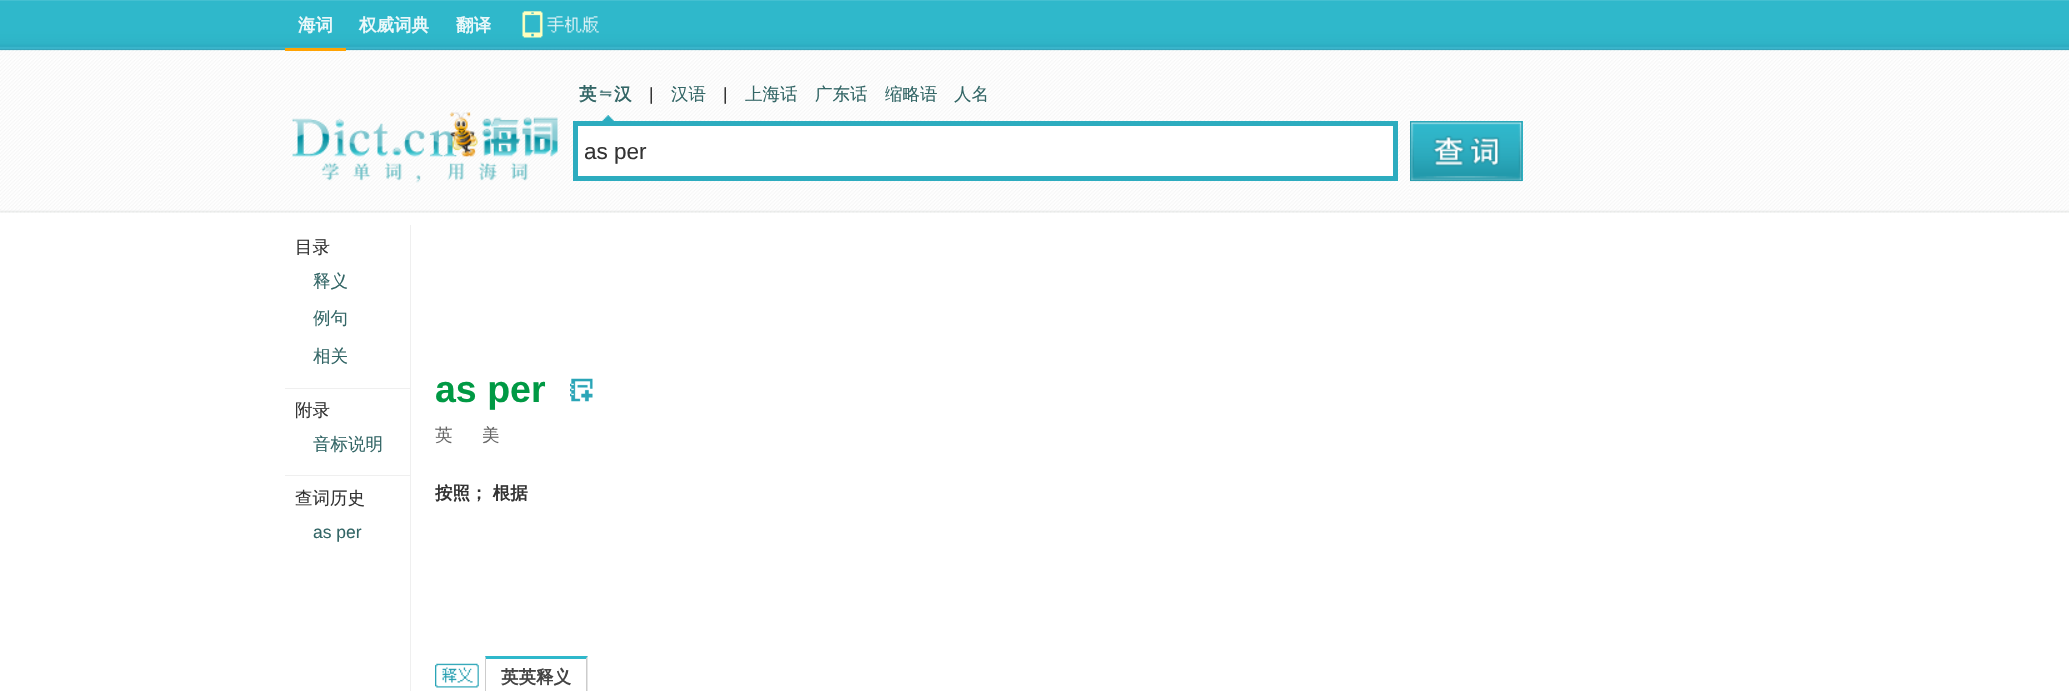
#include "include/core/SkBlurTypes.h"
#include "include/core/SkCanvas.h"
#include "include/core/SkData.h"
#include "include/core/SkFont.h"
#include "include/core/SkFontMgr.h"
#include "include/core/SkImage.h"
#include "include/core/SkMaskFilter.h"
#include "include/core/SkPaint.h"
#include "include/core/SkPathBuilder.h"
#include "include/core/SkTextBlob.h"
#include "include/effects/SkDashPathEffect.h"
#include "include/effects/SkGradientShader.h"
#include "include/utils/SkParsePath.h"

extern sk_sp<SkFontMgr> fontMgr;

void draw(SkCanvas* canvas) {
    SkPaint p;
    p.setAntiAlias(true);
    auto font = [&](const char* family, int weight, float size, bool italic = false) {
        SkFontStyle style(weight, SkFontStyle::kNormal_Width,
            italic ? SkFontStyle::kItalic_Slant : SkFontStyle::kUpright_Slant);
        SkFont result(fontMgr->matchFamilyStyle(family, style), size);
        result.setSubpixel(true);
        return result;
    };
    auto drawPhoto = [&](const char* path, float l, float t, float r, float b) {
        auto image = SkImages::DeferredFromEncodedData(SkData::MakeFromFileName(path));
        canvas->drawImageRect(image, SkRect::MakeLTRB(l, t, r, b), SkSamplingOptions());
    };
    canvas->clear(0xFFFFFFFF);
    drawPhoto("media/1.png", 0, 0, 2069, 213);
    p.setColor(0xFFFFA303);
    canvas->drawRect(SkRect::MakeLTRB(285, 48, 346, 51), p);
    auto font1 = font("WenQuanYi Zen Hei", 700, 17.5f);
    p.setColor(0xFFEBF8FA);
    {
        const struct { const char* s; float x, y; } items[] = {
            {"海词", 298, 31},
            {"权威词典", 359, 31},
            {"翻译", 456, 31},
        };
        for (auto [s, x, y] : items) {
            canvas->drawString(s, x, y, font1, p);
        }
    }
    drawPhoto("media/2.png", 522, 11, 599, 38);
    drawPhoto("media/3.png", 292, 112, 558, 183);
    drawPhoto("media/4.png", 602, 115, 614, 121);
    drawPhoto("media/5.png", 599, 90, 612, 97);
    p.setColor(0xFF336666);
    canvas->drawString("英　汉", 579, 100, font1, p);
    auto font2 = font("Liberation Sans", 400, 17.5f);
    p.setColor(0xFF333333);
    canvas->drawString("|", 649, 100, font2, p);
    auto font3 = font("WenQuanYi Zen Hei", 500, 17.5f);
    p.setColor(0xFF336666);
    canvas->drawString("汉语", 671, 100, font3, p);
    p.setColor(0xFF333333);
    canvas->drawString("|", 723, 100, font2, p);
    p.setColor(0xFF336666);
    {
        const struct { const char* s; float x, y; } items[] = {
            {"上海话", 745, 100},
            {"广东话", 815, 100},
            {"缩略语", 885, 100},
            {"人名", 954, 100},
        };
        for (auto [s, x, y] : items) {
            canvas->drawString(s, x, y, font3, p);
        }
    }
    p.setColor(0xFFFFFFFF);
    canvas->drawRect(SkRect::MakeLTRB(575.5f, 123.5f, 1395.5f, 178.5f), p);
    p.setStyle(SkPaint::kStroke_Style);
    p.setStrokeWidth(5);
    p.setColor(0xFF2DACBF);
    canvas->drawRect(SkRect::MakeLTRB(575.5f, 123.5f, 1395.5f, 178.5f), p);
    auto font4 = font("Liberation Sans", 400, 22.5f);
    p.setStyle(SkPaint::kFill_Style);
    p.setColor(0xFF333333);
    canvas->drawString("as per", 584, 159, font4, p);
    p.setColor(0xFF2FB8CB);
    canvas->drawRect(SkRect::MakeLTRB(1410, 121, 1523, 181), p);
    drawPhoto("media/6.png", 1410, 121, 1523, 182);
    p.setColor(0xFF333333);
    canvas->drawString("目录", 295, 253, font3, p);
    p.setColor(0xFF336666);
    {
        const struct { const char* s; float x, y; } items[] = {
            {"释义", 313, 287},
            {"例句", 313, 324},
            {"相关", 313, 362},
        };
        for (auto [s, x, y] : items) {
            canvas->drawString(s, x, y, font3, p);
        }
    }
    p.setColor(0xFFEFEFEF);
    canvas->drawRect(SkRect::MakeLTRB(285, 388, 410, 389), p);
    p.setColor(0xFF333333);
    canvas->drawString("附录", 295, 416, font3, p);
    p.setColor(0xFF336666);
    canvas->drawString("音标说明", 313, 450, font3, p);
    p.setColor(0xFFEFEFEF);
    canvas->drawRect(SkRect::MakeLTRB(285, 475, 410, 476), p);
    p.setColor(0xFF333333);
    canvas->drawString("查词历史", 295, 504, font3, p);
    p.setColor(0xFF336666);
    canvas->drawString("as per", 313, 538, font2, p);
    p.setColor(0xFFEFEFEF);
    canvas->drawRect(SkRect::MakeLTRB(410, 225, 411, 691), p);
    auto font5 = font("Liberation Sans", 700, 37.5f);
    p.setColor(0xFF009944);
    canvas->drawString("as per", 435, 402, font5, p);
    drawPhoto("media/7.png", 570, 378, 593, 402);
    p.setColor(0xFF666666);
    canvas->drawString("英", 435, 441, font3, p);
    canvas->drawString("美", 482, 441, font3, p);
    p.setColor(0xFF333333);
    canvas->drawString("按照； 根据", 435, 499, font1, p);
    drawPhoto("media/8.png", 435, 663, 479, 688);
    p.setColor(0xFF2FB8CB);
    canvas->drawPath(SkPathBuilder().moveTo(485, 656).lineTo(588, 656).lineTo(586, 659).lineTo(486, 659).close().detach(), p);
    p.setColor(0xFFCCCCCC);
    canvas->drawPath(SkPathBuilder().moveTo(587.5f, 656).lineTo(587.5f, 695).lineTo(586, 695).lineTo(586, 659).close().detach(), p);
    canvas->drawPath(SkPathBuilder().moveTo(485, 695).lineTo(485, 656).lineTo(486, 659).lineTo(486, 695).close().detach(), p);
    p.setColor(0xFF444444);
    canvas->drawString("英英释义", 501, 683, font1, p);
}
